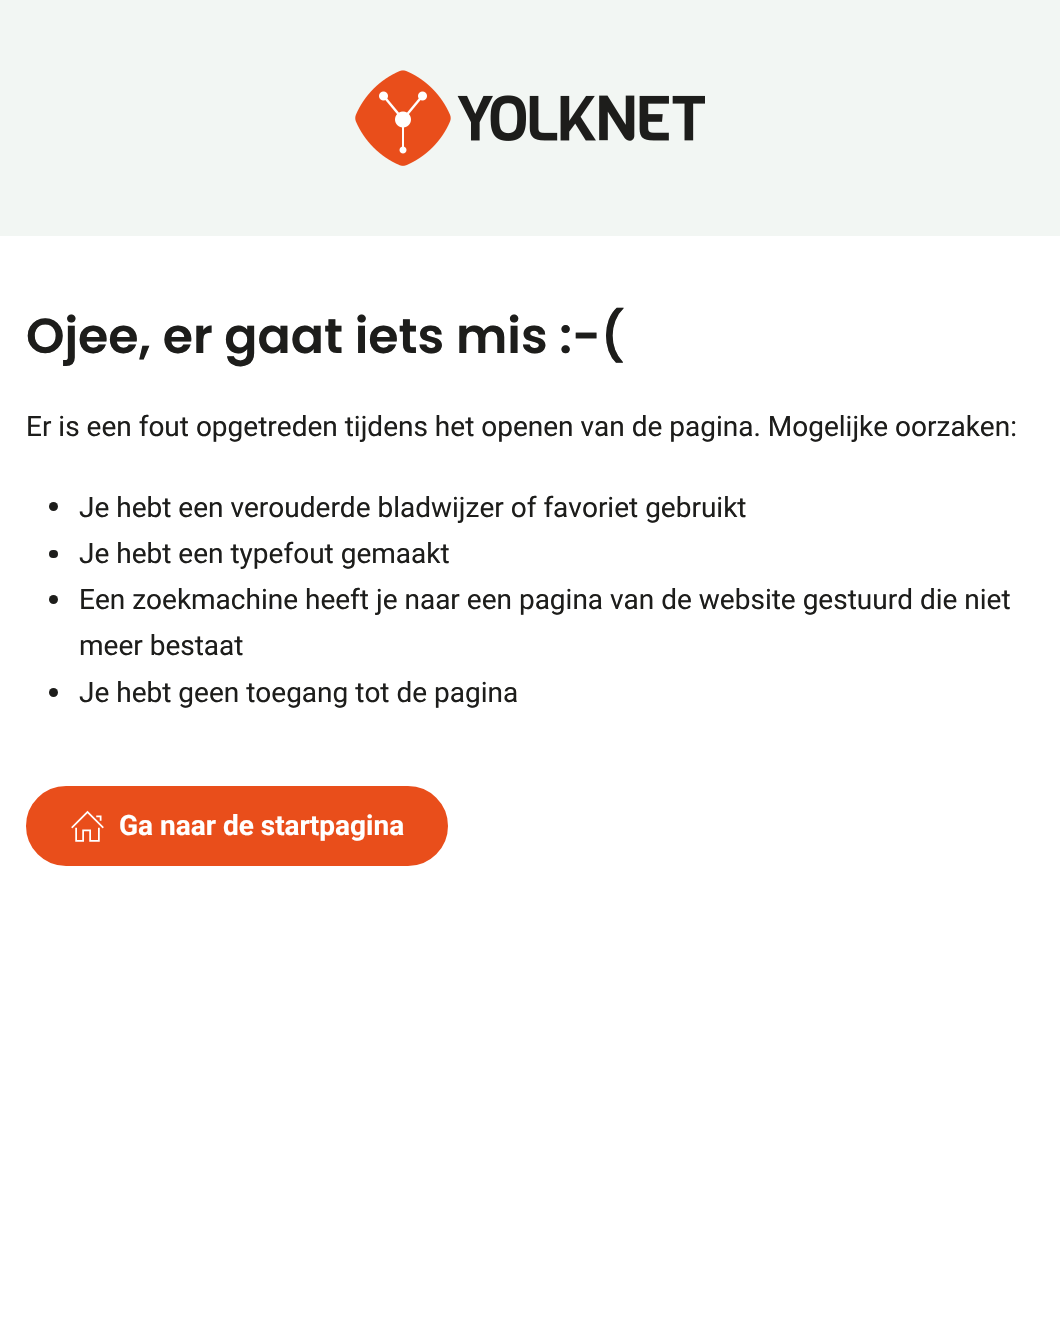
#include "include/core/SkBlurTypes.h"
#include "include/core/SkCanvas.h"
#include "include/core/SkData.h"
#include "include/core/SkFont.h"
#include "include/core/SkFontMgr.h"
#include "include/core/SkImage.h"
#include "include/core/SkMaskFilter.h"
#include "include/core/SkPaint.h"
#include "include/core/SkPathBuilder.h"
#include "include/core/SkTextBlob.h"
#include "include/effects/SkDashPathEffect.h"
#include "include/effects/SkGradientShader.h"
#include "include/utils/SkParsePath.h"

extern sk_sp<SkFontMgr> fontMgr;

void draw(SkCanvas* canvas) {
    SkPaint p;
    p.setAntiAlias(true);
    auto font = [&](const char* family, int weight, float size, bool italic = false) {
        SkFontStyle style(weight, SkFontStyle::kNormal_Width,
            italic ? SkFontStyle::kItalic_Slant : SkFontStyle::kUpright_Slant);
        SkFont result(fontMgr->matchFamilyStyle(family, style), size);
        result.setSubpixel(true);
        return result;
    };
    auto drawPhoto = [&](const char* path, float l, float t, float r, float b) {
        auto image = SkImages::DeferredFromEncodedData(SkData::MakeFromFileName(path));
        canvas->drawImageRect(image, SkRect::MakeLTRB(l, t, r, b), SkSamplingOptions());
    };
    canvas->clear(0xFFFFFFFF);
    p.setColor(0xFFF2F6F3);
    canvas->drawRect(SkRect::MakeLTRB(0, 0, 1060, 236), p);
    drawPhoto("media/1.png", 355, 70, 705, 166);
    auto font1 = font("Poppins", 600, 49);
    p.setColor(0xFF1D1D1B);
    canvas->drawString("Ojee, er gaat iets mis :-(", 26, 353, font1, p);
    auto font2 = font("Roboto", 400, 28);
    canvas->drawString("Er is een fout opgetreden tijdens het openen van de pagina. Mogelijke oorzaken:", 26, 436, font2, p);
    canvas->drawCircle(53.5f, 506.5f, 4.5f, p);
    canvas->drawString("Je hebt een verouderde bladwijzer of favoriet gebruikt", 79, 517, font2, p);
    canvas->drawRoundRect(SkRect::MakeLTRB(49, 550, 58, 558), 4, 4, p);
    canvas->drawString("Je hebt een typefout gemaakt", 79, 563, font2, p);
    canvas->drawCircle(53.5f, 599.5f, 4.5f, p);
    canvas->drawString("Een zoekmachine heeft je naar een pagina van de website gestuurd die niet", 79, 609, font2, p);
    canvas->drawString("meer bestaat", 79, 655, font2, p);
    canvas->drawCircle(53.5f, 692.5f, 4.5f, p);
    canvas->drawString("Je hebt geen toegang tot de pagina", 79, 702, font2, p);
    p.setColor(0xFFE94E1B);
    canvas->drawRoundRect(SkRect::MakeLTRB(27, 787, 447, 865), 39, 39, p);
    p.setStyle(SkPaint::kStroke_Style);
    p.setStrokeWidth(2);
    canvas->drawRoundRect(SkRect::MakeLTRB(27, 787, 447, 865), 39, 39, p);
    drawPhoto("media/2.png", 71, 810, 104, 842);
    auto font3 = font("Roboto", 700, 28);
    p.setStyle(SkPaint::kFill_Style);
    p.setColor(0xFFFFFFFF);
    canvas->drawString("Ga naar de startpagina", 119, 835, font3, p);
}
